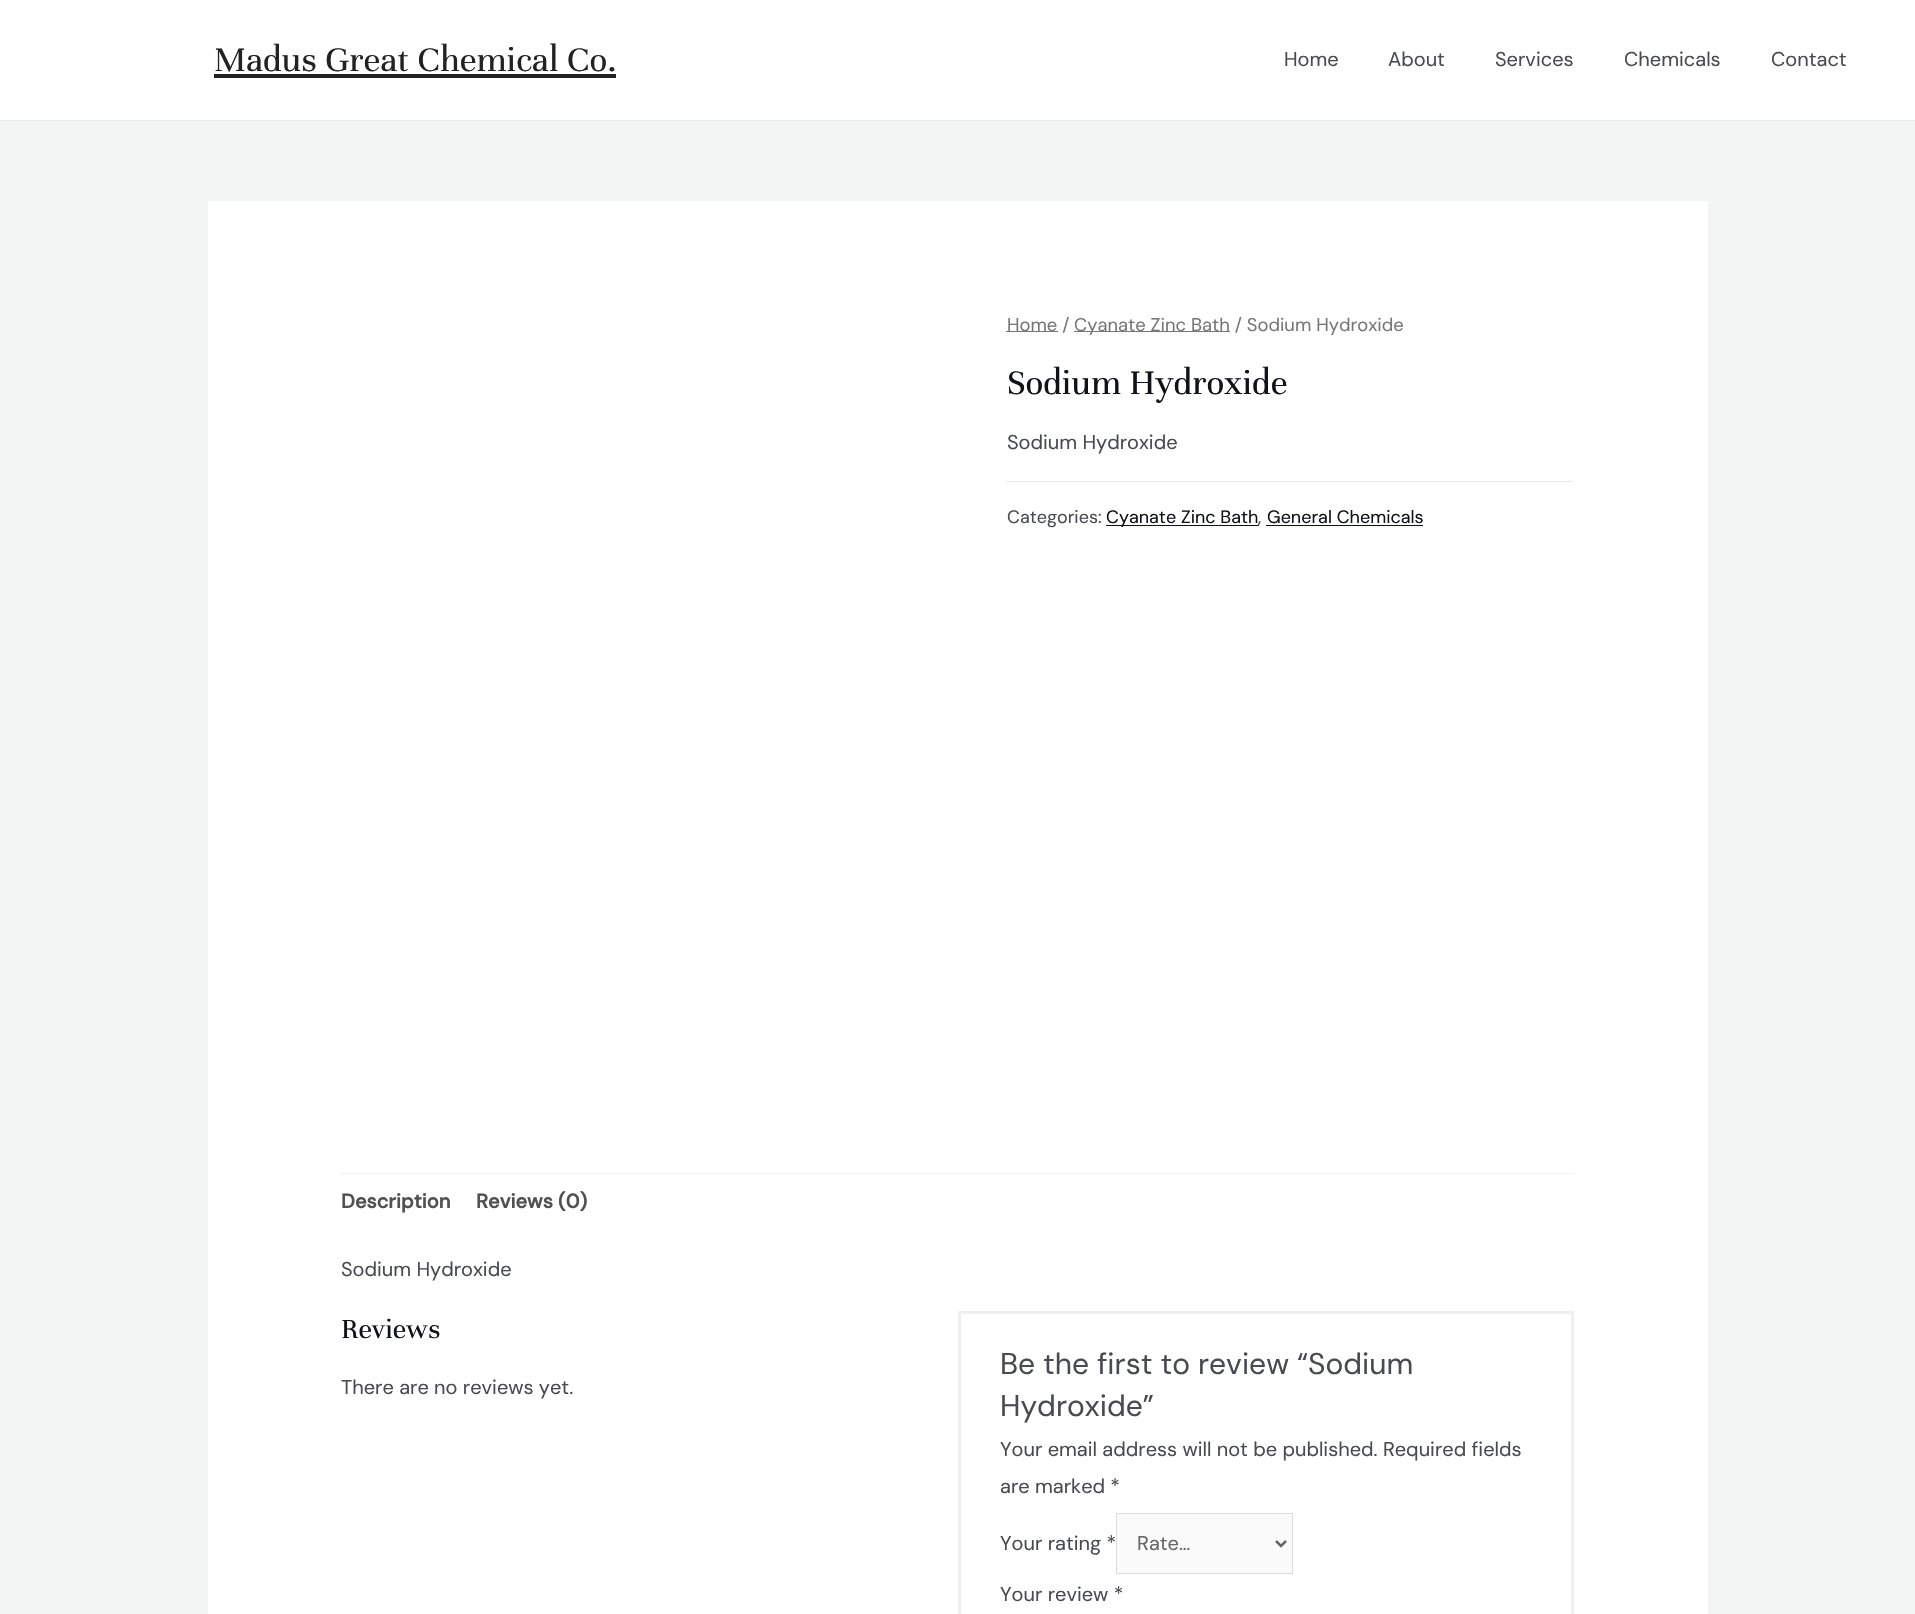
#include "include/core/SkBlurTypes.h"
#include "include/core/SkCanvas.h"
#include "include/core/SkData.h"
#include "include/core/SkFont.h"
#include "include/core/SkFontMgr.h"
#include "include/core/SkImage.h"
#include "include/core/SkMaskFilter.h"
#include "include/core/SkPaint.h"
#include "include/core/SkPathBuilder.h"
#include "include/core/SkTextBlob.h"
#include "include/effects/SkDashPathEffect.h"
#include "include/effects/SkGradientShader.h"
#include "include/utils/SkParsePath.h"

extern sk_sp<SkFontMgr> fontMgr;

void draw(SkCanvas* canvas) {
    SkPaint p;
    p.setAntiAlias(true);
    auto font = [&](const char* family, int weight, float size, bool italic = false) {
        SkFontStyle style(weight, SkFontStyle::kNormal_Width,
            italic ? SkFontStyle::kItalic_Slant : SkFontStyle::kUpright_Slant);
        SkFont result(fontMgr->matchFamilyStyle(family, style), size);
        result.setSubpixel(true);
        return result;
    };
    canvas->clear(0xFFF3F5F5);
    p.setColor(0xFFFFFFFF);
    canvas->drawRect(SkRect::MakeLTRB(0, 0, 1915, 120), p);
    p.setColor(0xFFEAEAEA);
    canvas->drawRect(SkRect::MakeLTRB(0, 120, 1915, 121), p);
    auto font1 = font("Unna", 400, 37.5f);
    p.setColor(0xFF222222);
    canvas->drawString("Madus Great Chemical Co.", 214, 71, font1, p);
    canvas->drawRect(SkRect::MakeLTRB(214, 74, 616, 78), p);
    auto font2 = font("DM Sans", 400, 20);
    p.setColor(0xFF494B51);
    {
        const struct { const char* s; float x, y; } items[] = {
            {"Home", 1284, 66},
            {"About", 1388, 66},
            {"Services", 1495, 66},
            {"Chemicals", 1624, 66},
            {"Contact", 1771, 66},
        };
        for (auto [s, x, y] : items) {
            canvas->drawString(s, x, y, font2, p);
        }
    }
    p.setColor(0xFFFFFFFF);
    canvas->drawRect(SkRect::MakeLTRB(208, 201, 1708, 1614), p);
    p.setColor(0xFF777777);
    canvas->drawRect(SkRect::MakeLTRB(1006, 331, 1058, 332), p);
    auto font3 = font("DM Sans", 400, 18.4f);
    canvas->drawString("Home /", 1007, 331, font3, p);
    canvas->drawRect(SkRect::MakeLTRB(1074, 331, 1230, 332), p);
    canvas->drawString("Cyanate Zinc Bath / Sodium Hydroxide", 1074, 331, font3, p);
    p.setColor(0xFF101218);
    canvas->drawString("Sodium Hydroxide", 1007, 394, font1, p);
    p.setColor(0xFF494B51);
    canvas->drawString("Sodium Hydroxide", 1007, 449, font2, p);
    p.setColor(0xFFEBEBEB);
    canvas->drawRect(SkRect::MakeLTRB(1006, 481, 1574, 482), p);
    auto font4 = font("DM Sans", 400, 18);
    p.setColor(0xFF494B51);
    canvas->drawString("Categories:", 1007, 523, font4, p);
    p.setColor(0xFF101218);
    canvas->drawRect(SkRect::MakeLTRB(1106, 525, 1259, 526), p);
    canvas->drawString("Cyanate Zinc Bath", 1106, 523, font4, p);
    p.setColor(0xFF494B51);
    canvas->drawString(",", 1258, 523, font4, p);
    p.setColor(0xFF101218);
    canvas->drawString("General Chemicals", 1267, 523, font4, p);
    canvas->drawRect(SkRect::MakeLTRB(1266, 525, 1423, 526), p);
    p.setColor(0xFFF2F2F2);
    canvas->drawRect(SkRect::MakeLTRB(341, 1173, 1574, 1174), p);
    auto font5 = font("DM Sans", 700, 20);
    p.setColor(0xFF515151);
    canvas->drawString("Description", 341, 1208, font5, p);
    canvas->drawString("Reviews (0)", 476, 1208, font5, p);
    p.setColor(0xFF494B51);
    canvas->drawString("Sodium Hydroxide", 341, 1276, font2, p);
    auto font6 = font("Unna", 400, 30);
    p.setColor(0xFF101218);
    canvas->drawString("Reviews", 341, 1338, font6, p);
    p.setColor(0xFF494B51);
    canvas->drawString("There are no reviews yet.", 341, 1394, font2, p);
    p.setStyle(SkPaint::kStroke_Style);
    p.setStrokeWidth(3);
    p.setColor(0xFFEFEFEF);
    canvas->drawRect(SkRect::MakeLTRB(959.5f, 1312.5f, 1572.5f, 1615.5f), p);
    auto font7 = font("DM Sans", 400, 30);
    p.setStyle(SkPaint::kFill_Style);
    p.setColor(0xFF494B51);
    canvas->drawString("Be the first to review “Sodium", 1000, 1374, font7, p);
    canvas->drawString("Hydroxide”", 1000, 1416, font7, p);
    {
        const struct { const char* s; float x, y; } items[] = {
            {"Your email address will not be published. Required fields", 1000, 1456},
            {"are marked *", 1000, 1493},
            {"Your rating *", 1000, 1550},
        };
        for (auto [s, x, y] : items) {
            canvas->drawString(s, x, y, font2, p);
        }
    }
    p.setColor(0xFFFAFAFA);
    canvas->drawRect(SkRect::MakeLTRB(1116.5f, 1513.5f, 1292.5f, 1573.5f), p);
    p.setStyle(SkPaint::kStroke_Style);
    p.setStrokeWidth(1);
    p.setColor(0xFFDDDDDD);
    canvas->drawRect(SkRect::MakeLTRB(1116.5f, 1513.5f, 1292.5f, 1573.5f), p);
    p.setStrokeWidth(2.5f);
    p.setColor(0xFF666666);
    canvas->drawPath(SkPathBuilder().moveTo(1276, 1541).lineTo(1281, 1546).lineTo(1286, 1541).detach(), p);
    p.setStyle(SkPaint::kFill_Style);
    canvas->drawString("Rate…", 1137, 1550, font2, p);
    p.setColor(0xFF494B51);
    canvas->drawString("Your review *", 1000, 1601, font2, p);
}
